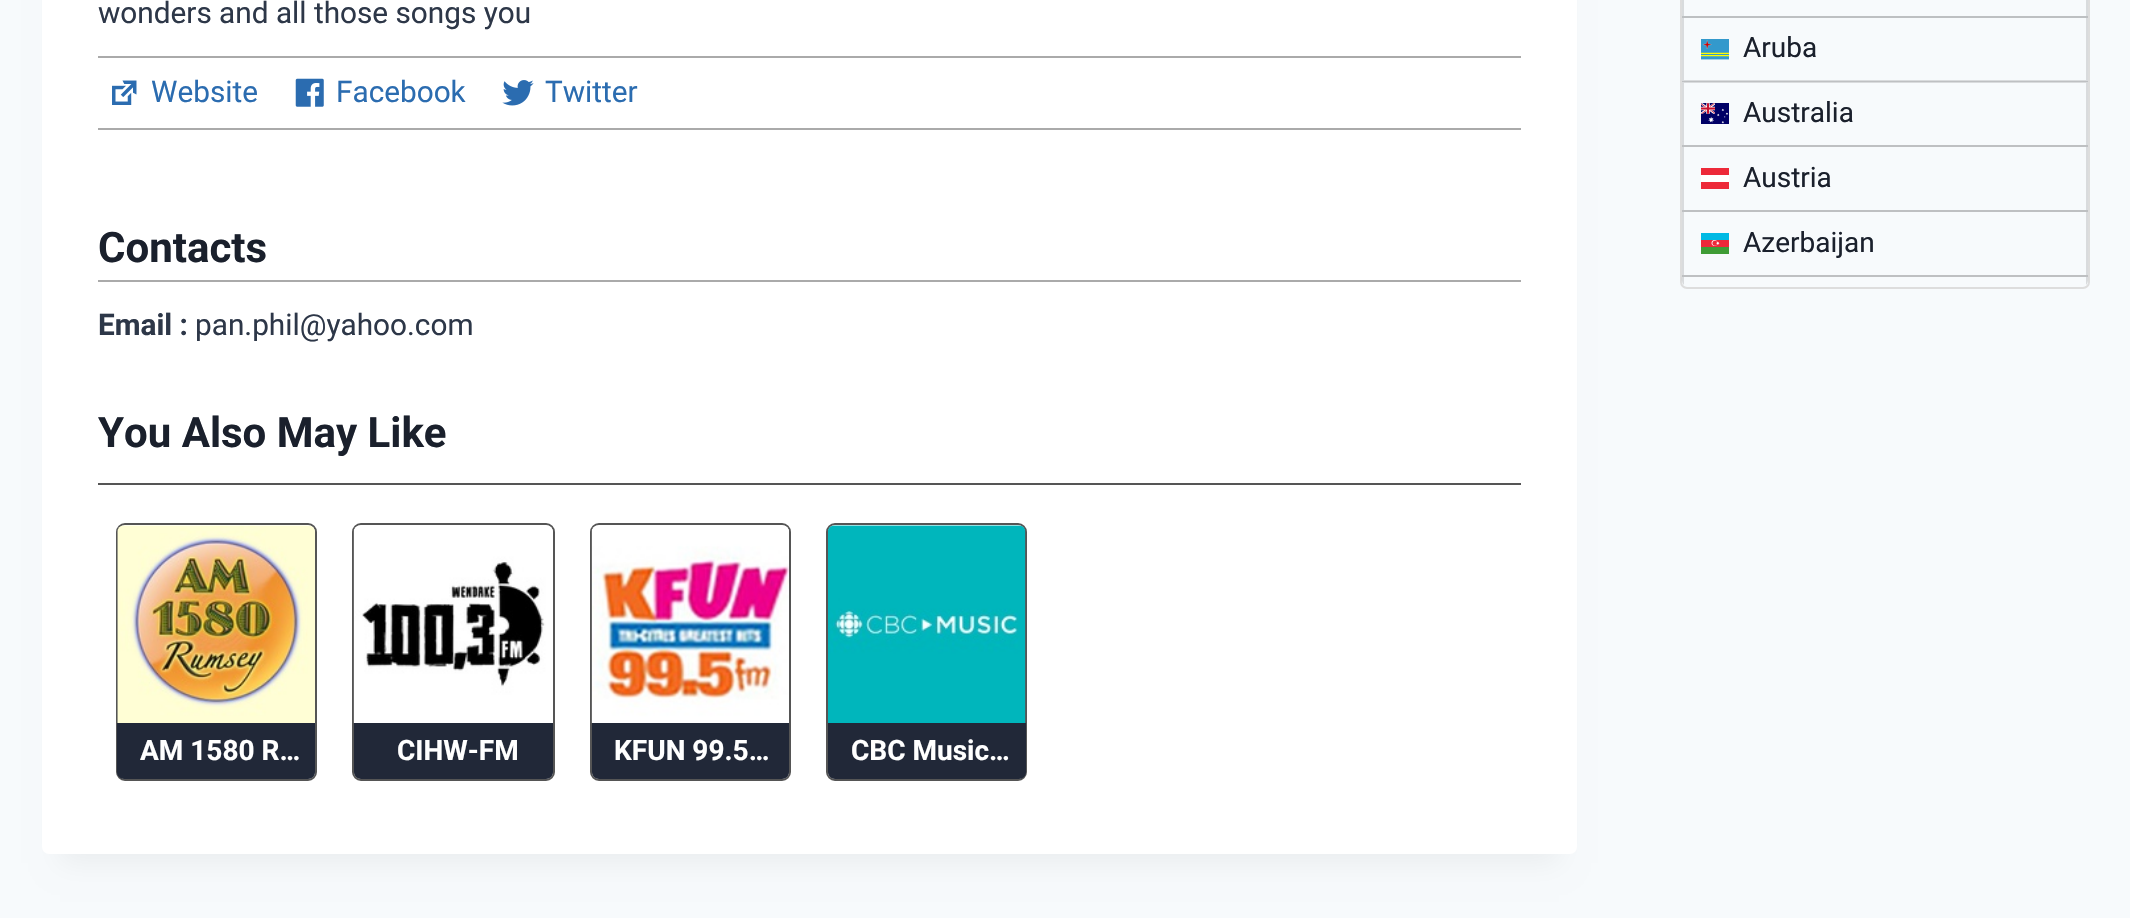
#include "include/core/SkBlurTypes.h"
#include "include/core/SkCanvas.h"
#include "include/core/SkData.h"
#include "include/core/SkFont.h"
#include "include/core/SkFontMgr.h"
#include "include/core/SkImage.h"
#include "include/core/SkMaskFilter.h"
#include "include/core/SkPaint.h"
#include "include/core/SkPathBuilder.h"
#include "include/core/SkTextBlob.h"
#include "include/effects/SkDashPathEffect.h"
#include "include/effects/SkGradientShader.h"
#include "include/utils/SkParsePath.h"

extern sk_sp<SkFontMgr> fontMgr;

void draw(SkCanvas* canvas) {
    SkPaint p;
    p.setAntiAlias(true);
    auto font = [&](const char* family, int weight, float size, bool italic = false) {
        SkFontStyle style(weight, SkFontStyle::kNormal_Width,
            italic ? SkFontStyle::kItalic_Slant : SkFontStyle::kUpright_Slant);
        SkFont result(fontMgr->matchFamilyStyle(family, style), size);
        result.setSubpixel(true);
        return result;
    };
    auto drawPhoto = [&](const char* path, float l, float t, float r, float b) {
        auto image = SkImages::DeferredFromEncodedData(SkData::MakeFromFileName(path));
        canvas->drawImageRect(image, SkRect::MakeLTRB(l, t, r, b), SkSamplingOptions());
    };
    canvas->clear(0xFFF7FAFC);
    p.setColor(0x0D000000);
    p.setMaskFilter(SkMaskFilter::MakeBlur(kNormal_SkBlurStyle, 13));
    canvas->drawRect(SkRect::MakeLTRB(60, -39, 1559, 863), p);
    p.setMaskFilter(nullptr);
    p.setColor(0xFFFFFFFF);
    canvas->drawRoundRect(SkRect::MakeLTRB(42, -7, 1577, 854), 7, 7, p);
    p.setColor(0xFFAAAAAA);
    canvas->drawRect(SkRect::MakeLTRB(98, 56, 1521, 58), p);
    auto font1 = font("Roboto", 400, 29.75f);
    p.setColor(0xFF2D3748);
    canvas->drawString("wonders and all those songs you", 98, 23, font1, p);
    p.setColor(0xFFAAAAAA);
    canvas->drawRect(SkRect::MakeLTRB(98, 128, 1521, 130), p);
    drawPhoto("media/1.png", 112, 80, 137, 105);
    p.setColor(0xFF2B6CB0);
    canvas->drawString("Website", 151, 102, font1, p);
    drawPhoto("media/2.png", 295, 78, 324, 107);
    canvas->drawString("Facebook", 336, 102, font1, p);
    drawPhoto("media/3.png", 502, 80, 534, 106);
    canvas->drawString("Twitter", 545, 102, font1, p);
    p.setColor(0xFFAAAAAA);
    canvas->drawRect(SkRect::MakeLTRB(98, 280, 1521, 282), p);
    auto font2 = font("Roboto", 700, 42);
    p.setColor(0xFF1A202C);
    canvas->drawString("Contacts", 98, 262, font2, p);
    auto font3 = font("Roboto", 700, 29.75f);
    p.setColor(0xFF2D3748);
    canvas->drawString("Email :", 98, 335, font3, p);
    canvas->drawString("pan.phil@yahoo.com", 195, 335, font1, p);
    p.setColor(0xFF555555);
    canvas->drawRect(SkRect::MakeLTRB(98, 483, 1521, 485), p);
    p.setColor(0xFF1A202C);
    canvas->drawString("You Also May Like", 98, 447, font2, p);
    p.setStyle(SkPaint::kStroke_Style);
    p.setStrokeWidth(2);
    p.setColor(0xFF555555);
    canvas->drawRoundRect(SkRect::MakeLTRB(117, 524, 316, 780), 8, 8, p);
    drawPhoto("media/4.png", 117, 525, 315, 723);
    p.setStyle(SkPaint::kFill_Style);
    p.setColor(0xFF212838);
    canvas->drawPath(SkPathBuilder().moveTo(117, 723).lineTo(315, 723).lineTo(315, 772).cubicTo(315, 776, 312, 779, 308, 779).lineTo(124, 779).cubicTo(120, 779, 117, 776, 117, 772).close().detach(), p);
    auto font4 = font("Roboto", 700, 28);
    p.setColor(0xFFFFFFFF);
    canvas->drawString("AM 1580 R…", 140, 760, font4, p);
    p.setStyle(SkPaint::kStroke_Style);
    p.setColor(0xFF555555);
    canvas->drawRoundRect(SkRect::MakeLTRB(353, 524, 554, 780), 8, 8, p);
    drawPhoto("media/5.png", 353, 525, 553, 723);
    p.setStyle(SkPaint::kFill_Style);
    p.setColor(0xFF212838);
    canvas->drawPath(SkPathBuilder().moveTo(354, 723).lineTo(553, 723).lineTo(553, 772).cubicTo(553, 776, 550, 779, 546, 779).lineTo(361, 779).cubicTo(357, 779, 354, 776, 354, 772).close().detach(), p);
    p.setColor(0xFFFFFFFF);
    canvas->drawString("CIHW-FM", 397, 760, font4, p);
    p.setStyle(SkPaint::kStroke_Style);
    p.setColor(0xFF555555);
    canvas->drawRoundRect(SkRect::MakeLTRB(591, 524, 790, 780), 8, 8, p);
    drawPhoto("media/6.png", 591, 525, 789, 723);
    p.setStyle(SkPaint::kFill_Style);
    p.setColor(0xFF212838);
    canvas->drawPath(SkPathBuilder().moveTo(592, 723).lineTo(789, 723).lineTo(789, 772).cubicTo(789, 776, 786, 779, 782, 779).lineTo(599, 779).cubicTo(595, 779, 592, 776, 592, 772).close().detach(), p);
    p.setColor(0xFFFFFFFF);
    canvas->drawString("KFUN 99.5…", 614, 760, font4, p);
    p.setStyle(SkPaint::kStroke_Style);
    p.setColor(0xFF555555);
    canvas->drawRoundRect(SkRect::MakeLTRB(827, 524, 1026, 780), 8, 8, p);
    drawPhoto("media/7.png", 828, 525, 1026, 723);
    p.setStyle(SkPaint::kFill_Style);
    p.setColor(0xFF212838);
    canvas->drawPath(SkPathBuilder().moveTo(828, 723).lineTo(1026, 723).lineTo(1026, 772).cubicTo(1026, 776, 1023, 779, 1019, 779).lineTo(835, 779).cubicTo(831, 779, 828, 776, 828, 772).close().detach(), p);
    p.setColor(0xFFFFFFFF);
    canvas->drawString("CBC Music…", 851, 760, font4, p);
    p.setStyle(SkPaint::kStroke_Style);
    p.setColor(0xFFDDDDDD);
    canvas->drawRoundRect(SkRect::MakeLTRB(1681, -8, 2089, 288), 6, 6, p);
    p.setColor(0xFFD8DBDD);
    canvas->drawRect(SkRect::MakeLTRB(1683, -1, 2087, 17), p);
    p.setColor(0x1F000000);
    canvas->drawRect(SkRect::MakeLTRB(1683, 17, 2087, 81), p);
    drawPhoto("media/8.png", 1701, 39, 1729, 60);
    auto font5 = font("Roboto", 400, 28);
    p.setStyle(SkPaint::kFill_Style);
    p.setColor(0xFF1A202C);
    canvas->drawString("Aruba", 1743, 57, font5, p);
    p.setStyle(SkPaint::kStroke_Style);
    p.setColor(0x1F000000);
    canvas->drawRect(SkRect::MakeLTRB(1683, 82, 2087, 146), p);
    drawPhoto("media/9.png", 1701, 103, 1729, 124);
    p.setStyle(SkPaint::kFill_Style);
    p.setColor(0xFF1A202C);
    canvas->drawString("Australia", 1743, 122, font5, p);
    p.setStyle(SkPaint::kStroke_Style);
    p.setColor(0x1F000000);
    canvas->drawRect(SkRect::MakeLTRB(1683, 146, 2087, 211), p);
    p.setStyle(SkPaint::kFill_Style);
    p.setColor(0xFFFFFFFF);
    canvas->drawRect(SkRect::MakeLTRB(1701, 175, 1729, 182), p);
    p.setColor(0xFFED2939);
    canvas->drawPath(SkPathBuilder(SkPathFillType::kEvenOdd).moveTo(1729, 189).lineTo(1701, 189).lineTo(1701, 182).lineTo(1729, 182).close().moveTo(1729, 175).lineTo(1701, 175).lineTo(1701, 168).lineTo(1729, 168).close().detach(), p);
    p.setColor(0xFF1A202C);
    canvas->drawString("Austria", 1743, 187, font5, p);
    p.setStyle(SkPaint::kStroke_Style);
    p.setColor(0x1F000000);
    canvas->drawRect(SkRect::MakeLTRB(1683, 211, 2087, 276), p);
    drawPhoto("media/10.png", 1701, 233, 1729, 254);
    p.setStyle(SkPaint::kFill_Style);
    p.setColor(0xFF1A202C);
    canvas->drawString("Azerbaijan", 1743, 252, font5, p);
    p.setColor(0x1F000000);
    canvas->drawPath(SkPathBuilder().moveTo(1684, 277).lineTo(2086, 277).lineTo(2086, 285).cubicTo(2089, 282, 2088, 278, 2088, 275).lineTo(1682, 275).cubicTo(1682, 278, 1681, 282, 1684, 285).close().detach(), p);
}
